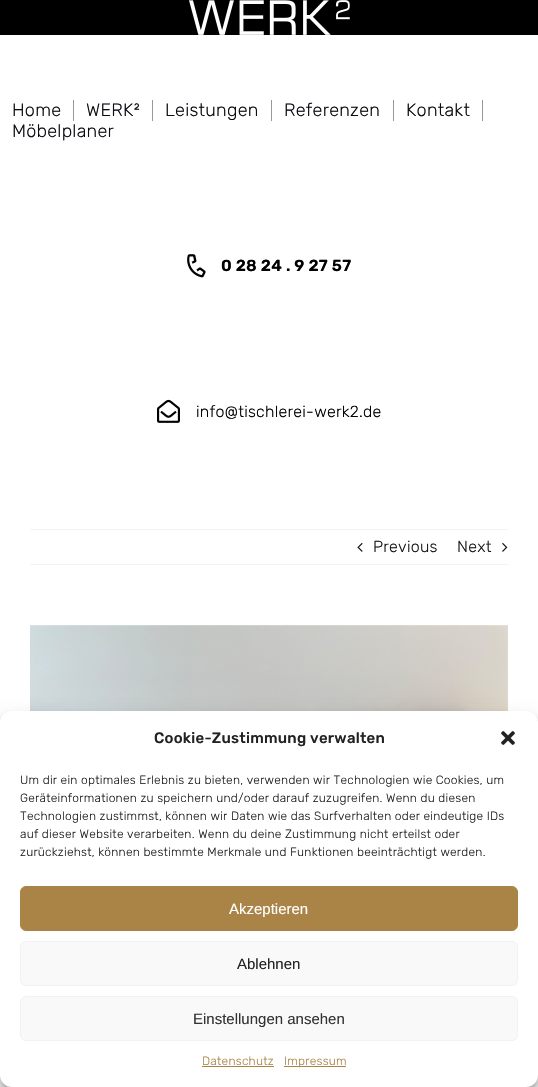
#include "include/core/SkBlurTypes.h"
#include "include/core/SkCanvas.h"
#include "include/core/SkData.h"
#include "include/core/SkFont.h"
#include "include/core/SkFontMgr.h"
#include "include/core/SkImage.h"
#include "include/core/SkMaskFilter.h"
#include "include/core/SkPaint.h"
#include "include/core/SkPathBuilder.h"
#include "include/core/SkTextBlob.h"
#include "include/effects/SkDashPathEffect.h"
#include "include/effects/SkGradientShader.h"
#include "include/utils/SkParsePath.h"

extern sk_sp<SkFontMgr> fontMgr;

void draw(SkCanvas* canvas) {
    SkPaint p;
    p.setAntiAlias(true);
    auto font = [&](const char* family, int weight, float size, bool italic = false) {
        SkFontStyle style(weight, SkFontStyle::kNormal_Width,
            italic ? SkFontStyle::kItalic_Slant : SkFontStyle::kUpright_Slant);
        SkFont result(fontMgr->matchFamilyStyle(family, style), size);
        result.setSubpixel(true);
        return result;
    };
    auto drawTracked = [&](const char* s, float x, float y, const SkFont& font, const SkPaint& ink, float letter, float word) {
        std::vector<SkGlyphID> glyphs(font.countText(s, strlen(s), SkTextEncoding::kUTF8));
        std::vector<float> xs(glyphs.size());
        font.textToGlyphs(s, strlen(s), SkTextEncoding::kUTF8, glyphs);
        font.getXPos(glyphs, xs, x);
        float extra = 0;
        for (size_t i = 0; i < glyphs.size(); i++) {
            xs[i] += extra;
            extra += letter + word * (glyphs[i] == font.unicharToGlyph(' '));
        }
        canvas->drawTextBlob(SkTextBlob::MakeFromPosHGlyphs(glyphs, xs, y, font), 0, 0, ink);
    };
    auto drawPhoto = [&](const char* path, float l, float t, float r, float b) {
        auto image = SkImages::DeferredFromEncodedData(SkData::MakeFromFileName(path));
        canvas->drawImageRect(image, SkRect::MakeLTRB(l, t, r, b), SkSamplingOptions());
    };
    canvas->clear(0xFFFFFFFF);
    p.setColor(0xFF000000);
    canvas->drawRect(SkRect::MakeLTRB(0, 0, 538, 35), p);
    drawPhoto("media/1.png", 189, 0, 350, 35);
    p.setColor(0xFF999999);
    canvas->drawRect(SkRect::MakeLTRB(73, 100, 74, 121), p);
    auto font1 = font("Rubik", 300, 18);
    p.setColor(0xFF0B0C11);
    drawTracked("Home", 12, 116, font1, p, 0.25f, 0);
    p.setColor(0xFF999999);
    canvas->drawRect(SkRect::MakeLTRB(152, 100, 153, 121), p);
    p.setColor(0xFF0B0C11);
    drawTracked("WERK²", 86, 116, font1, p, 0.25f, 0);
    p.setColor(0xFF999999);
    canvas->drawRect(SkRect::MakeLTRB(271, 100, 272, 121), p);
    p.setColor(0xFF0B0C11);
    drawTracked("Leistungen", 165, 116, font1, p, 0.25f, 0);
    p.setColor(0xFF999999);
    canvas->drawRect(SkRect::MakeLTRB(393, 100, 394, 121), p);
    p.setColor(0xFF0B0C11);
    drawTracked("Referenzen", 284, 116, font1, p, 0.25f, 0);
    p.setColor(0xFF999999);
    canvas->drawRect(SkRect::MakeLTRB(482, 100, 483, 121), p);
    p.setColor(0xFF0B0C11);
    drawTracked("Kontakt", 406, 116, font1, p, 0.25f, 0);
    drawTracked("Möbelplaner", 12, 137, font1, p, 0.25f, 0);
    drawPhoto("media/2.png", 187, 254, 206, 278);
    auto font2 = font("Rubik", 600, 16);
    p.setColor(0xFF000000);
    drawTracked("0 28 24 . 9 27 57", 221, 271, font2, p, 0.25f, 0);
    drawPhoto("media/3.png", 157, 399, 180, 423);
    auto font3 = font("Rubik", 300, 16);
    drawTracked("info@tischlerei-werk2.de", 196, 417, font3, p, 0.25f, 0);
    p.setColor(0xFFF2F3F5);
    canvas->drawRect(SkRect::MakeLTRB(30, 529, 508, 530), p);
    canvas->drawRect(SkRect::MakeLTRB(30, 564, 508, 565), p);
    drawPhoto("media/4.png", 357, 543, 363, 552);
    p.setColor(0xFF141617);
    drawTracked("Previous", 373, 552, font3, p, 0.25f, 0);
    drawTracked("Next", 457, 552, font3, p, 0.25f, 0);
    drawPhoto("media/5.png", 502, 543, 508, 552);
    drawPhoto("media/6.png", 30, 625, 508, 711);
    p.setColor(0x3B000000);
    p.setMaskFilter(SkMaskFilter::MakeBlur(kNormal_SkBlurStyle, 3));
    canvas->drawRoundRect(SkRect::MakeLTRB(0, 717, 538, 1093), 12, 12, p);
    p.setMaskFilter(nullptr);
    p.setColor(0x30000000);
    p.setMaskFilter(SkMaskFilter::MakeBlur(kNormal_SkBlurStyle, 10));
    canvas->drawRoundRect(SkRect::MakeLTRB(0, 721, 538, 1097), 12, 12, p);
    p.setMaskFilter(nullptr);
    p.setColor(0xFFFFFFFF);
    canvas->drawRoundRect(SkRect::MakeLTRB(0, 711, 538, 1087), 12, 12, p);
    auto font4 = font("Rubik", 500, 15);
    p.setColor(0xFF222222);
    drawTracked("Cookie-Zustimmung verwalten", 154, 743, font4, p, 0.25f, 0);
    drawPhoto("media/7.png", 501, 731, 515, 745);
    auto font5 = font("Rubik", 300, 12);
    {
        const struct { const char* s; float x, y; } items[] = {
            {"Um dir ein optimales Erlebnis zu bieten, verwenden wir Technologien wie Cookies, um", 20, 784},
            {"Geräteinformationen zu speichern und/oder darauf zuzugreifen. Wenn du diesen", 20, 802},
            {"Technologien zustimmst, können wir Daten wie das Surfverhalten oder eindeutige IDs", 20, 820},
            {"auf dieser Website verarbeiten. Wenn du deine Zustimmung nicht erteilst oder", 20, 838},
            {"zurückziehst, können bestimmte Merkmale und Funktionen beeinträchtigt werden.", 20, 856},
        };
        for (auto [s, x, y] : items) {
            drawTracked(s, x, y, font5, p, 0.25f, 0);
        }
    }
    p.setColor(0xFFAA8447);
    canvas->drawRoundRect(SkRect::MakeLTRB(20.5f, 886.5f, 517.5f, 930.5f), 5.5f, 5.5f, p);
    p.setStyle(SkPaint::kStroke_Style);
    p.setStrokeWidth(1);
    canvas->drawRoundRect(SkRect::MakeLTRB(20.5f, 886.5f, 517.5f, 930.5f), 5.5f, 5.5f, p);
    auto font6 = font("Liberation Sans", 400, 15);
    p.setStyle(SkPaint::kFill_Style);
    p.setColor(0xFFFFFFFF);
    canvas->drawString("Akzeptieren", 229, 914, font6, p);
    p.setColor(0xFFF9F9F9);
    canvas->drawRoundRect(SkRect::MakeLTRB(20.5f, 941.5f, 517.5f, 985.5f), 5.5f, 5.5f, p);
    p.setStyle(SkPaint::kStroke_Style);
    p.setColor(0xFFF2F2F2);
    canvas->drawRoundRect(SkRect::MakeLTRB(20.5f, 941.5f, 517.5f, 985.5f), 5.5f, 5.5f, p);
    p.setStyle(SkPaint::kFill_Style);
    p.setColor(0xFF222222);
    canvas->drawString("Ablehnen", 237, 969, font6, p);
    p.setColor(0xFFF9F9F9);
    canvas->drawRoundRect(SkRect::MakeLTRB(20.5f, 996.5f, 517.5f, 1040.5f), 5.5f, 5.5f, p);
    p.setStyle(SkPaint::kStroke_Style);
    p.setColor(0xFFF2F2F2);
    canvas->drawRoundRect(SkRect::MakeLTRB(20.5f, 996.5f, 517.5f, 1040.5f), 5.5f, 5.5f, p);
    p.setStyle(SkPaint::kFill_Style);
    p.setColor(0xFF333333);
    canvas->drawString("Einstellungen ansehen", 193, 1024, font6, p);
    p.setColor(0xFFAA8447);
    drawTracked("Datenschutz", 202, 1065, font5, p, 0.25f, 0);
    canvas->drawRect(SkRect::MakeLTRB(202, 1066, 274, 1067), p);
    canvas->drawRect(SkRect::MakeLTRB(284, 1066, 346, 1067), p);
    drawTracked("Impressum", 284, 1065, font5, p, 0.25f, 0);
}
